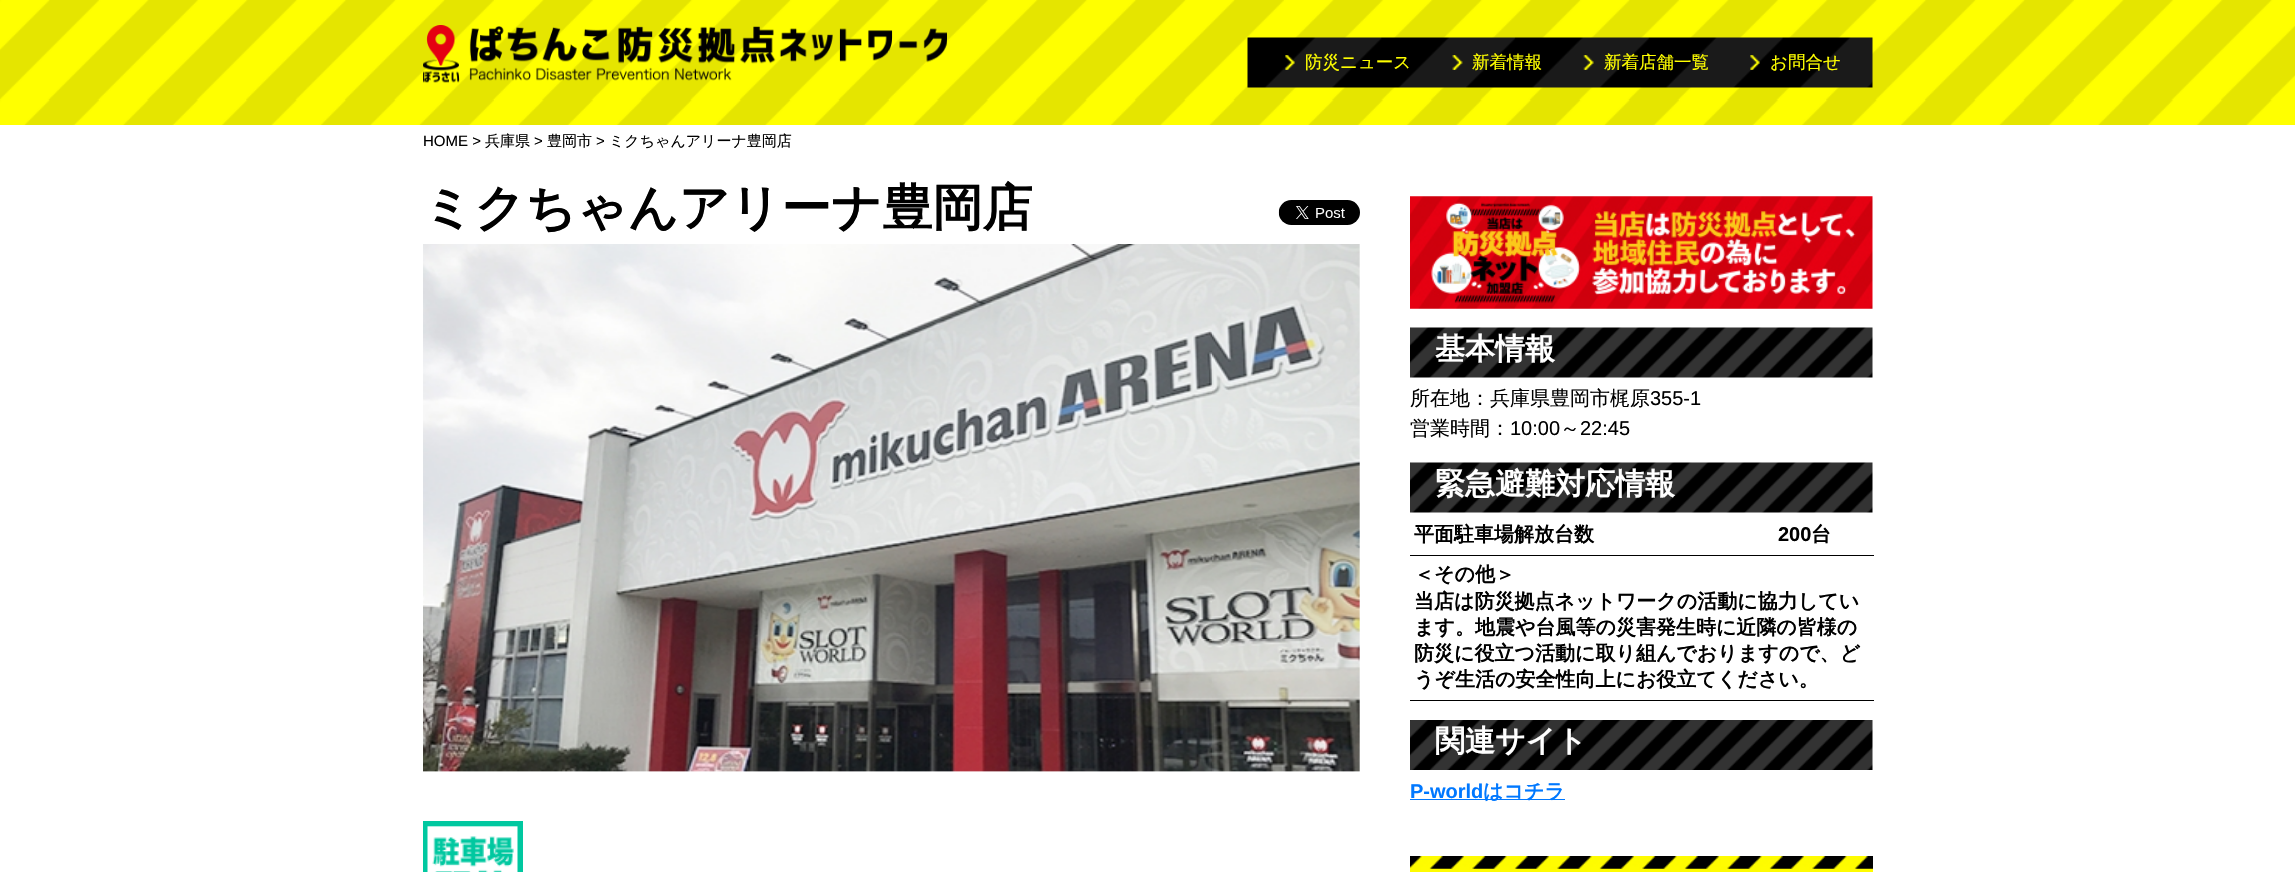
#include "include/core/SkBlurTypes.h"
#include "include/core/SkCanvas.h"
#include "include/core/SkData.h"
#include "include/core/SkFont.h"
#include "include/core/SkFontMgr.h"
#include "include/core/SkImage.h"
#include "include/core/SkMaskFilter.h"
#include "include/core/SkPaint.h"
#include "include/core/SkPathBuilder.h"
#include "include/core/SkTextBlob.h"
#include "include/effects/SkDashPathEffect.h"
#include "include/effects/SkGradientShader.h"
#include "include/utils/SkParsePath.h"

extern sk_sp<SkFontMgr> fontMgr;

void draw(SkCanvas* canvas) {
    SkPaint p;
    p.setAntiAlias(true);
    auto font = [&](const char* family, int weight, float size, bool italic = false) {
        SkFontStyle style(weight, SkFontStyle::kNormal_Width,
            italic ? SkFontStyle::kItalic_Slant : SkFontStyle::kUpright_Slant);
        SkFont result(fontMgr->matchFamilyStyle(family, style), size);
        result.setSubpixel(true);
        return result;
    };
    auto drawPhoto = [&](const char* path, float l, float t, float r, float b) {
        auto image = SkImages::DeferredFromEncodedData(SkData::MakeFromFileName(path));
        canvas->drawImageRect(image, SkRect::MakeLTRB(l, t, r, b), SkSamplingOptions());
    };
    canvas->clear(0xFFFFFFFF);
    drawPhoto("media/1.png", 0, 0, 2295, 125);
    drawPhoto("media/2.png", 423, 25, 947, 83);
    drawPhoto("media/3.png", 1247, 37, 1873, 88);
    drawPhoto("media/4.png", 1285, 55, 1295, 70);
    auto font1 = font("WenQuanYi Zen Hei", 500, 17.5f);
    p.setColor(0xFFFFFF00);
    canvas->drawString("防災ニュース", 1305, 68, font1, p);
    drawPhoto("media/5.png", 1452, 55, 1463, 70);
    canvas->drawString("新着情報", 1472, 68, font1, p);
    drawPhoto("media/6.png", 1583, 55, 1594, 70);
    canvas->drawString("新着店舗一覧", 1604, 68, font1, p);
    drawPhoto("media/7.png", 1750, 55, 1760, 70);
    canvas->drawString("お問合せ", 1770, 68, font1, p);
    auto font2 = font("Liberation Sans", 400, 15);
    p.setColor(0xFF000000);
    canvas->drawString("HOME >", 423, 146, font2, p);
    auto font3 = font("WenQuanYi Zen Hei", 500, 15);
    canvas->drawString("兵庫県", 485, 146, font3, p);
    canvas->drawString(">", 534, 146, font2, p);
    canvas->drawString("豊岡市", 547, 146, font3, p);
    canvas->drawString(">", 596, 146, font2, p);
    canvas->drawString("ミクちゃんアリーナ豊岡店", 609, 146, font3, p);
    auto font4 = font("WenQuanYi Zen Hei", 700, 50);
    canvas->drawString("ミクちゃんアリーナ豊岡店", 423, 225, font4, p);
    drawPhoto("media/8.png", 1278, 200, 1360, 225);
    drawPhoto("media/9.png", 423, 244, 1360, 772);
    drawPhoto("media/10.png", 423, 821, 523, 872);
    drawPhoto("media/11.png", 1410, 196, 1873, 309);
    drawPhoto("media/12.png", 1410, 327, 1873, 378);
    auto font5 = font("WenQuanYi Zen Hei", 700, 30);
    p.setColor(0xFFFFFFFF);
    canvas->drawString("基本情報", 1435, 359, font5, p);
    auto font6 = font("WenQuanYi Zen Hei", 500, 20);
    p.setColor(0xFF000000);
    canvas->drawString("所在地：兵庫県豊岡市梶原", 1410, 405, font6, p);
    auto font7 = font("Liberation Sans", 400, 20);
    canvas->drawString("355-1", 1650, 405, font7, p);
    canvas->drawString("営業時間：", 1410, 435, font6, p);
    canvas->drawString("10:00", 1510, 435, font7, p);
    canvas->drawString("～", 1560, 435, font6, p);
    canvas->drawString("22:45", 1580, 435, font7, p);
    drawPhoto("media/12.png", 1410, 462, 1873, 513);
    p.setColor(0xFFFFFFFF);
    canvas->drawString("緊急避難対応情報", 1435, 494, font5, p);
    auto font8 = font("WenQuanYi Zen Hei", 700, 20);
    p.setColor(0xFF000000);
    canvas->drawString("平面駐車場解放台数", 1414, 541, font8, p);
    canvas->drawRect(SkRect::MakeLTRB(1410, 555, 1874, 556), p);
    auto font9 = font("Liberation Sans", 700, 20);
    canvas->drawString("200", 1778, 541, font9, p);
    canvas->drawString("台", 1811, 541, font8, p);
    canvas->drawRect(SkRect::MakeLTRB(1410, 700, 1874, 701), p);
    {
        const struct { const char* s; float x, y; } items[] = {
            {"＜その他＞", 1414, 581},
            {"当店は防災拠点ネットワークの活動に協力してい", 1414, 608},
            {"ます。地震や台風等の災害発生時に近隣の皆様の", 1414, 634},
            {"防災に役立つ活動に取り組んでおりますので、ど", 1414, 660},
            {"うぞ生活の安全性向上にお役立てください。", 1414, 686},
        };
        for (auto [s, x, y] : items) {
            canvas->drawString(s, x, y, font8, p);
        }
    }
    drawPhoto("media/13.png", 1410, 720, 1873, 770);
    p.setColor(0xFFFFFFFF);
    canvas->drawString("関連サイト", 1435, 751, font5, p);
    p.setColor(0xFF0078FF);
    canvas->drawString("P-world", 1410, 798, font9, p);
    canvas->drawRect(SkRect::MakeLTRB(1410, 799, 1565, 800), p);
    canvas->drawString("はコチラ", 1483, 798, font8, p);
    drawPhoto("media/14.png", 1410, 856, 1873, 872);
}
